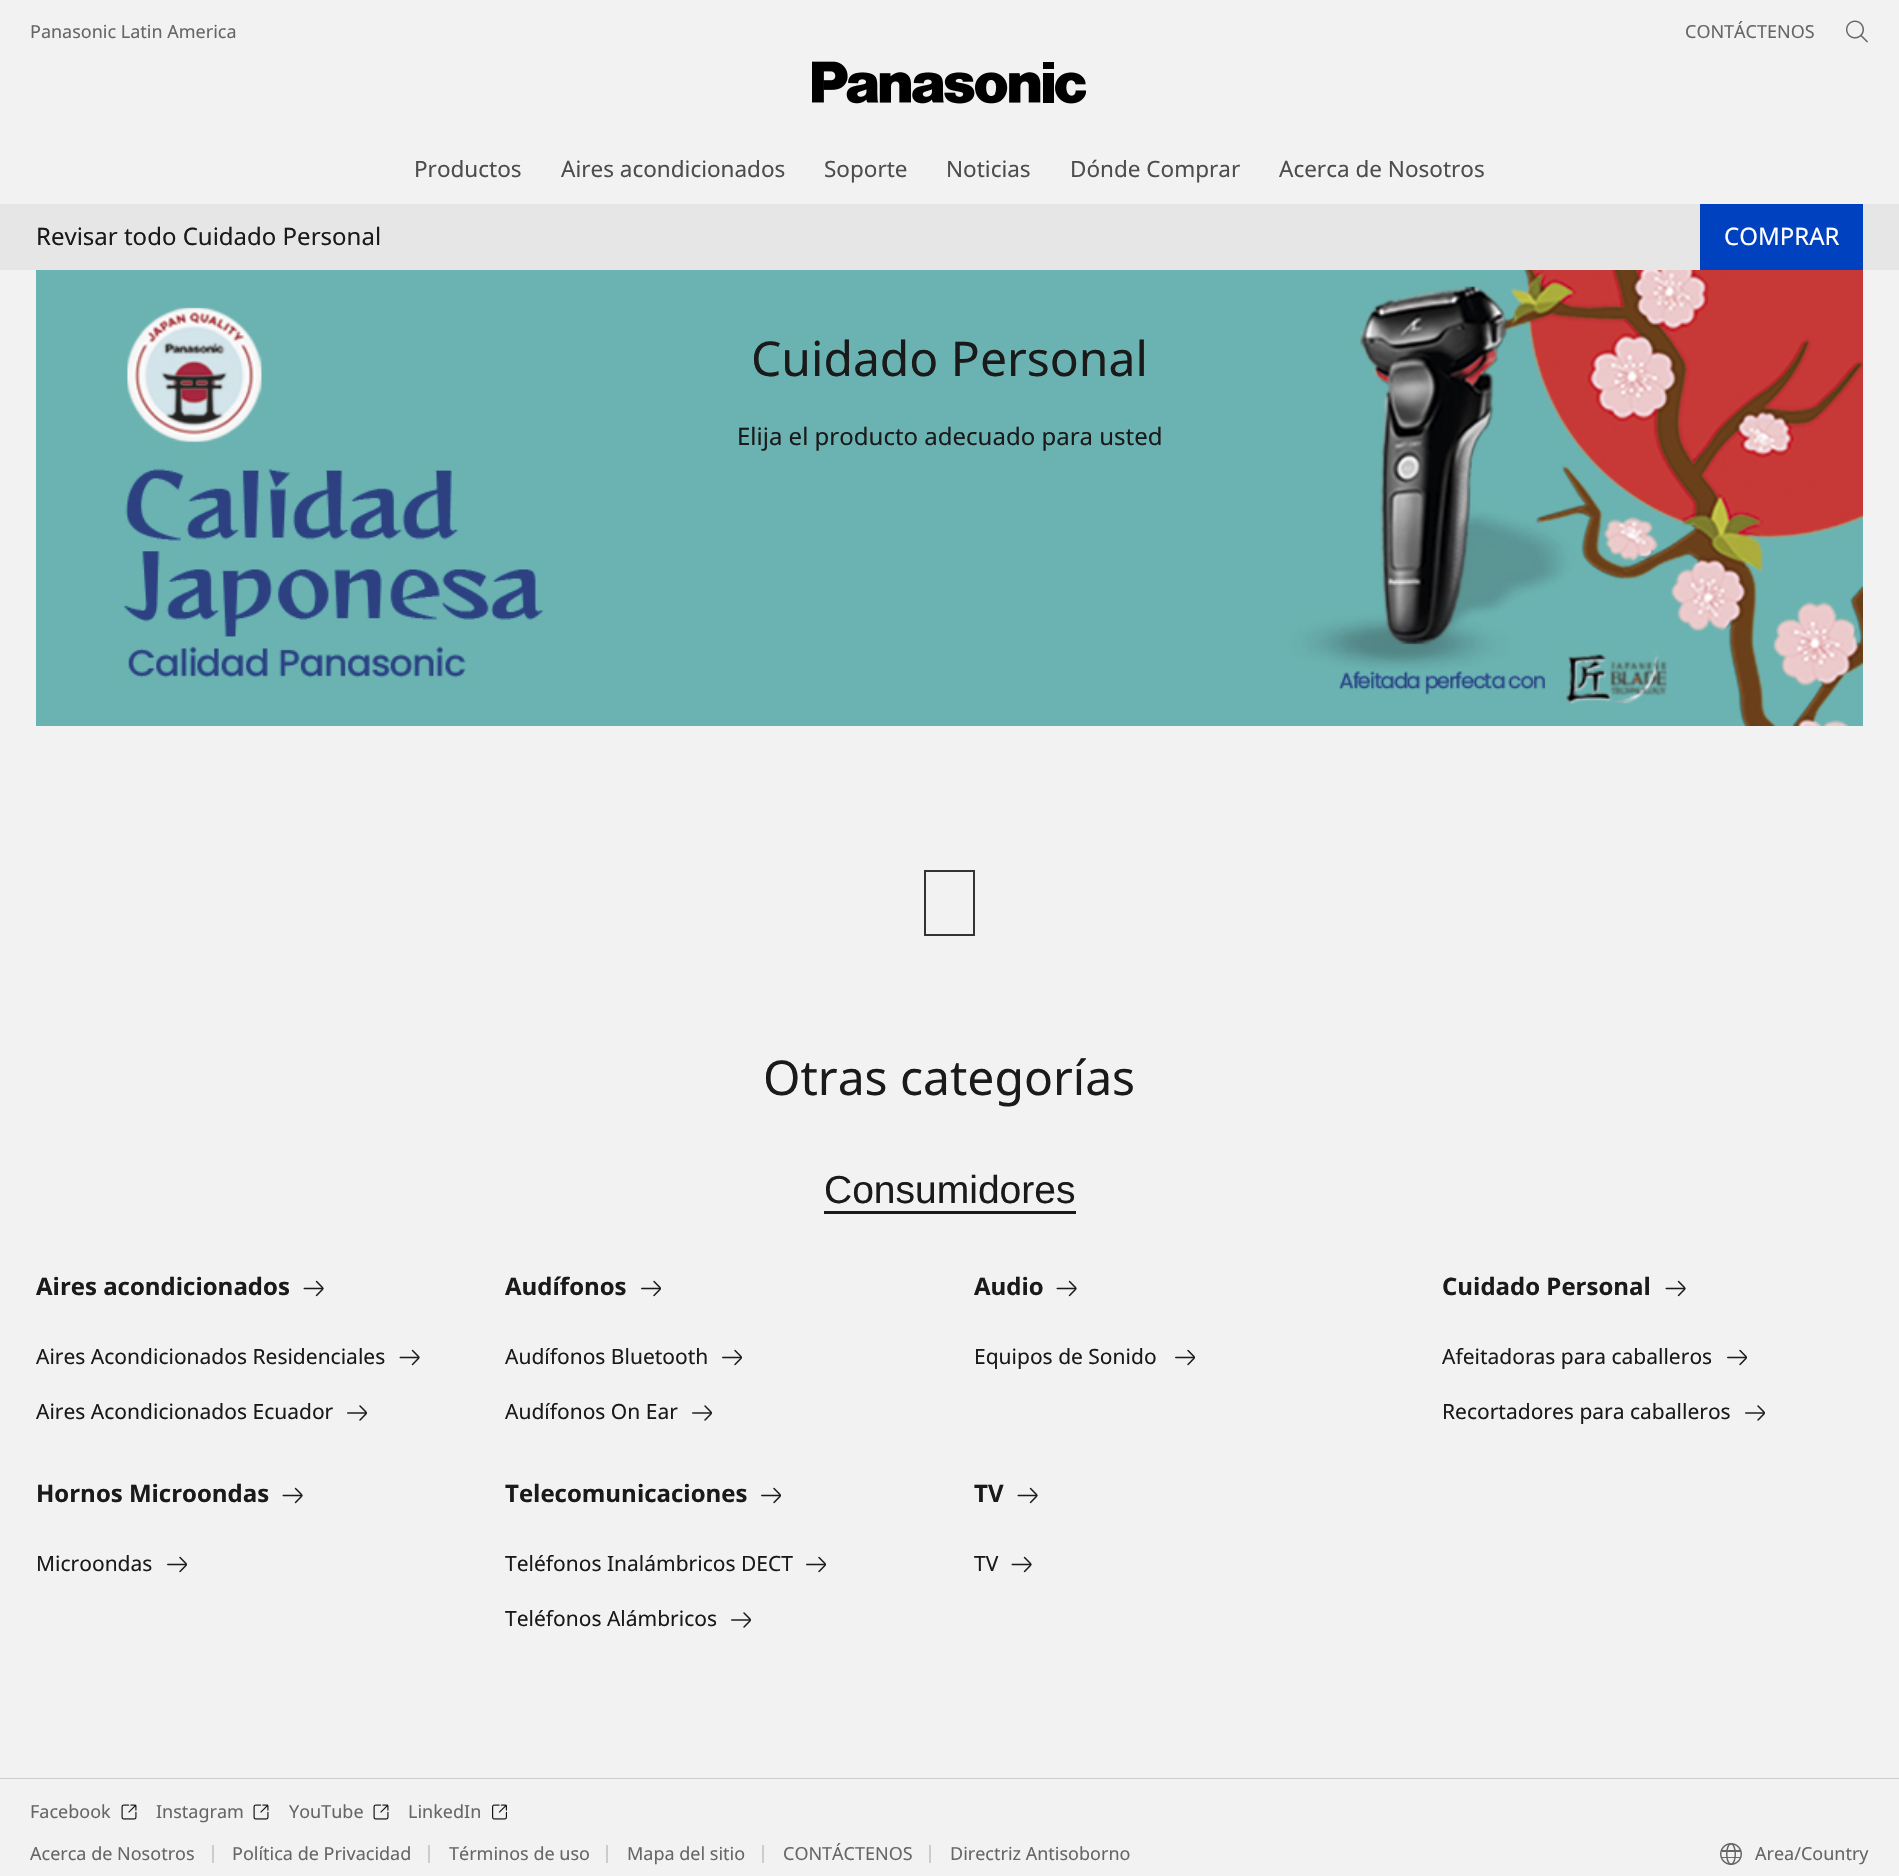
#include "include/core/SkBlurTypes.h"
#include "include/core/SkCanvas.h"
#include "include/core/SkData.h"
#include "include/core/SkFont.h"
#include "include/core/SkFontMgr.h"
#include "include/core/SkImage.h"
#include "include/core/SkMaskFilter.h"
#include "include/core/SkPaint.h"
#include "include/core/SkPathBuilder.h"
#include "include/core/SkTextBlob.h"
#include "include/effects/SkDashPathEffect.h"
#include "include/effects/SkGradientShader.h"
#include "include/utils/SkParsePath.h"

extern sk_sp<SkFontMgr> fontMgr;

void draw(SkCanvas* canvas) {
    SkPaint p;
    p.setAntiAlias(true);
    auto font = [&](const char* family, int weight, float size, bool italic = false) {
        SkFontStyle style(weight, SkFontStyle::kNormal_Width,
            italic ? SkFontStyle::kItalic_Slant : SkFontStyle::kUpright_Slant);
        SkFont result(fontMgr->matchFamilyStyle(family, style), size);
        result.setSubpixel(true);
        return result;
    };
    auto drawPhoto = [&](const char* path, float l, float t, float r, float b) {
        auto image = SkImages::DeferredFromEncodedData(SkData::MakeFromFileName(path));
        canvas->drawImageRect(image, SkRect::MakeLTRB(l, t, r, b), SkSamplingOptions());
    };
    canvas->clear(0xFFF2F2F2);
    auto font1 = font("Noto Sans", 400, 18);
    p.setColor(0xFF666666);
    canvas->drawString("Panasonic Latin America", 30, 38, font1, p);
    canvas->drawString("CONTÁCTENOS", 1685, 38, font1, p);
    drawPhoto("media/1.png", 1846, 20, 1868, 43);
    drawPhoto("media/2.png", 812, 61, 1086, 104);
    auto font2 = font("Noto Sans", 400, 22.5f);
    p.setColor(0xFF4D4D4D);
    {
        const struct { const char* s; float x, y; } items[] = {
            {"Productos", 414, 177},
            {"Aires acondicionados", 561, 177},
            {"Soporte", 824, 177},
            {"Noticias", 946, 177},
            {"Dónde Comprar", 1070, 177},
            {"Acerca de Nosotros", 1279, 177},
        };
        for (auto [s, x, y] : items) {
            canvas->drawString(s, x, y, font2, p);
        }
    }
    p.setColor(0xFFE6E6E6);
    canvas->drawRect(SkRect::MakeLTRB(0, 204, 1899, 270), p);
    auto font3 = font("Noto Sans", 400, 24);
    p.setColor(0xFF1A1A1A);
    canvas->drawString("Revisar todo Cuidado Personal", 36, 245, font3, p);
    p.setColor(0xFF0041C0);
    canvas->drawRect(SkRect::MakeLTRB(1700, 204, 1863, 270), p);
    p.setColor(0xFFFFFFFF);
    canvas->drawString("COMPRAR", 1724, 245, font3, p);
    drawPhoto("media/3.png", 36, 270, 1863, 726);
    auto font4 = font("Noto Sans", 400, 48);
    p.setColor(0xFF1A1A1A);
    canvas->drawString("Cuidado Personal", 751, 376, font4, p);
    canvas->drawString("Elija el producto adecuado para usted", 737, 445, font3, p);
    p.setStyle(SkPaint::kStroke_Style);
    p.setStrokeWidth(2);
    p.setColor(0xFF333333);
    canvas->drawRect(SkRect::MakeLTRB(925, 871, 974, 935), p);
    p.setStyle(SkPaint::kFill_Style);
    p.setColor(0xFF1A1A1A);
    canvas->drawString("Otras categorías", 763, 1095, font4, p);
    auto font5 = font("Liberation Sans", 400, 39);
    canvas->drawString("Consumidores", 824, 1203, font5, p);
    canvas->drawRect(SkRect::MakeLTRB(824, 1211, 1076, 1214), p);
    auto font6 = font("Noto Sans", 700, 24);
    canvas->drawString("Aires acondicionados", 36, 1295, font6, p);
    drawPhoto("media/4.png", 303, 1280, 324, 1297);
    auto font7 = font("Noto Sans", 400, 21);
    canvas->drawString("Aires Acondicionados Residenciales", 36, 1364, font7, p);
    drawPhoto("media/4.png", 399, 1349, 420, 1366);
    canvas->drawString("Aires Acondicionados Ecuador", 36, 1419, font7, p);
    drawPhoto("media/5.png", 347, 1405, 367, 1421);
    canvas->drawString("Audífonos", 505, 1295, font6, p);
    drawPhoto("media/6.png", 641, 1280, 661, 1297);
    canvas->drawString("Audífonos Bluetooth", 505, 1364, font7, p);
    drawPhoto("media/6.png", 722, 1349, 742, 1366);
    canvas->drawString("Audífonos On Ear", 505, 1419, font7, p);
    drawPhoto("media/5.png", 692, 1405, 712, 1421);
    canvas->drawString("Audio", 974, 1295, font6, p);
    drawPhoto("media/4.png", 1056, 1280, 1077, 1297);
    canvas->drawString("Equipos de Sonido", 974, 1364, font7, p);
    drawPhoto("media/6.png", 1175, 1349, 1195, 1366);
    canvas->drawString("Cuidado Personal", 1442, 1295, font6, p);
    drawPhoto("media/4.png", 1665, 1280, 1686, 1297);
    canvas->drawString("Afeitadoras para caballeros", 1442, 1364, font7, p);
    drawPhoto("media/6.png", 1727, 1349, 1747, 1366);
    canvas->drawString("Recortadores para caballeros", 1442, 1419, font7, p);
    drawPhoto("media/5.png", 1745, 1405, 1765, 1421);
    canvas->drawString("Hornos Microondas", 36, 1502, font6, p);
    drawPhoto("media/4.png", 282, 1487, 303, 1504);
    canvas->drawString("Microondas", 36, 1571, font7, p);
    drawPhoto("media/6.png", 167, 1556, 187, 1573);
    canvas->drawString("Telecomunicaciones", 505, 1502, font6, p);
    drawPhoto("media/6.png", 761, 1487, 781, 1504);
    canvas->drawString("Teléfonos Inalámbricos DECT", 505, 1571, font7, p);
    drawPhoto("media/6.png", 806, 1556, 826, 1573);
    canvas->drawString("Teléfonos Alámbricos", 505, 1626, font7, p);
    drawPhoto("media/5.png", 731, 1612, 751, 1628);
    canvas->drawString("TV", 974, 1502, font6, p);
    drawPhoto("media/4.png", 1017, 1487, 1038, 1504);
    canvas->drawString("TV", 974, 1571, font7, p);
    drawPhoto("media/4.png", 1011, 1556, 1032, 1573);
    p.setColor(0xFFCCCCCC);
    canvas->drawRect(SkRect::MakeLTRB(0, 1778, 1899, 1779), p);
    p.setColor(0xFF666666);
    canvas->drawString("Facebook", 30, 1818, font1, p);
    drawPhoto("media/7.png", 121, 1804, 137, 1820);
    canvas->drawString("Instagram", 156, 1818, font1, p);
    drawPhoto("media/7.png", 253, 1804, 269, 1820);
    canvas->drawString("YouTube", 289, 1818, font1, p);
    drawPhoto("media/7.png", 373, 1804, 389, 1820);
    canvas->drawString("LinkedIn", 408, 1818, font1, p);
    drawPhoto("media/8.png", 492, 1804, 507, 1820);
    canvas->drawString("Acerca de Nosotros", 30, 1860, font1, p);
    p.setColor(0xFFCCCCCC);
    canvas->drawRect(SkRect::MakeLTRB(212, 1845, 214, 1863), p);
    p.setColor(0xFF666666);
    canvas->drawString("Política de Privacidad", 232, 1860, font1, p);
    p.setColor(0xFFCCCCCC);
    canvas->drawRect(SkRect::MakeLTRB(428, 1845, 430, 1863), p);
    p.setColor(0xFF666666);
    canvas->drawString("Términos de uso", 449, 1860, font1, p);
    p.setColor(0xFFCCCCCC);
    canvas->drawRect(SkRect::MakeLTRB(606, 1845, 608, 1863), p);
    p.setColor(0xFF666666);
    canvas->drawString("Mapa del sitio", 627, 1860, font1, p);
    p.setColor(0xFFCCCCCC);
    canvas->drawRect(SkRect::MakeLTRB(762, 1845, 764, 1863), p);
    p.setColor(0xFF666666);
    canvas->drawString("CONTÁCTENOS", 783, 1860, font1, p);
    p.setColor(0xFFCCCCCC);
    canvas->drawRect(SkRect::MakeLTRB(929, 1845, 931, 1863), p);
    p.setColor(0xFF666666);
    canvas->drawString("Directriz Antisoborno", 950, 1860, font1, p);
    drawPhoto("media/9.png", 1720, 1843, 1742, 1865);
    canvas->drawString("Area/Country", 1755, 1860, font1, p);
}
